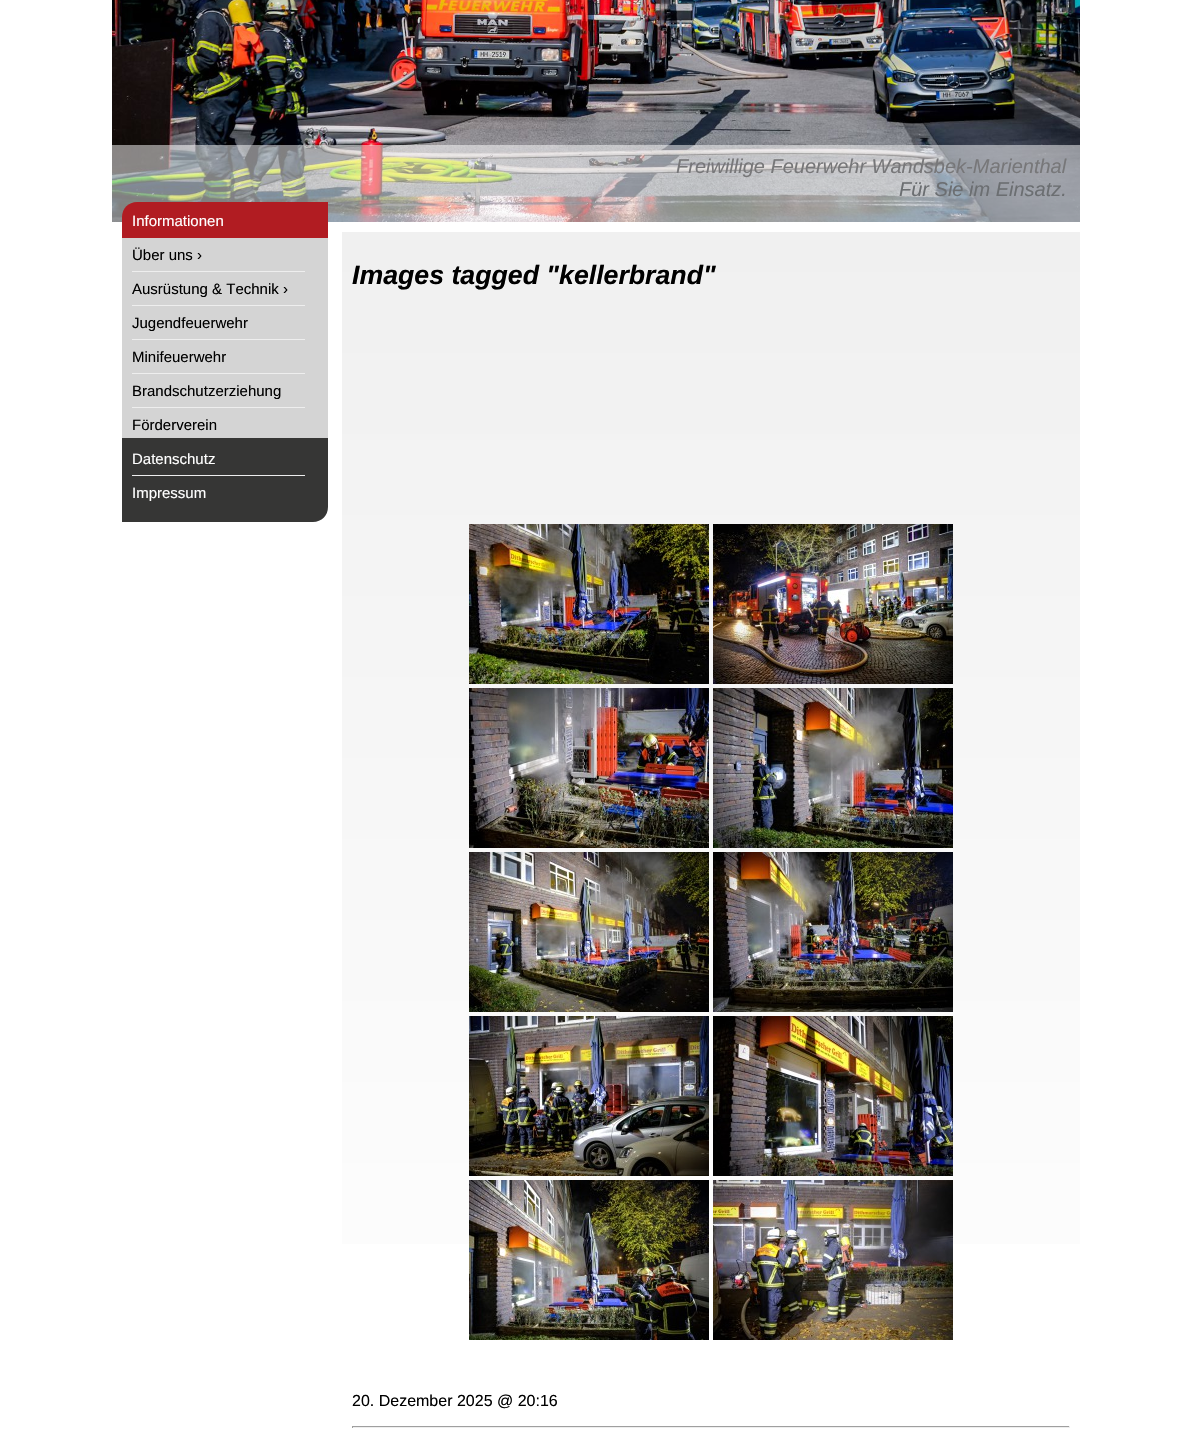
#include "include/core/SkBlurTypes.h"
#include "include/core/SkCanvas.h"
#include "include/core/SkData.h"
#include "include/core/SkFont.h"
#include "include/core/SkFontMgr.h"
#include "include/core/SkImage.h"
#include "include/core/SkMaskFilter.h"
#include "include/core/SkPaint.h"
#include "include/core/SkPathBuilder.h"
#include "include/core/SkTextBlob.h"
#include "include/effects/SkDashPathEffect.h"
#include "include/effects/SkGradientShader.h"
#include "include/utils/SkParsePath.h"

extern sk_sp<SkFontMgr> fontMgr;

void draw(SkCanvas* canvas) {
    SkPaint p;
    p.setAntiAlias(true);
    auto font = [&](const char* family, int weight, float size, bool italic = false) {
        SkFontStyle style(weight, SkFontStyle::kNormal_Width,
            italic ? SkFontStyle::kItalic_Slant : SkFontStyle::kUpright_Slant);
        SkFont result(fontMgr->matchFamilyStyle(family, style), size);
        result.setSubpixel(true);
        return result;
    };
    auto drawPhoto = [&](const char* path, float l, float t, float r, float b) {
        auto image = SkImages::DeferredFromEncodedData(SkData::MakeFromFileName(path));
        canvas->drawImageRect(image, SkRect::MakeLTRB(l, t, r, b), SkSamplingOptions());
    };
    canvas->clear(0xFFFFFFFF);
    drawPhoto("media/1.png", 112, 0, 1080, 222);
    p.setColor(0x80FFFFFF);
    canvas->drawRect(SkRect::MakeLTRB(112, 145, 1080, 222), p);
    auto font1 = font("Liberation Sans", 400, 20, true);
    p.setColor(0xFF777779);
    canvas->drawString("Freiwillige Feuerwehr Wandsbek-Marienthal", 676, 173, font1, p);
    p.setColor(0xFF6B6E71);
    canvas->drawString("Für Sie im Einsatz.", 899, 196, font1, p);
    p.setColor(0xFFB11C22);
    canvas->drawPath(SkPathBuilder().moveTo(137, 202).lineTo(328, 202).lineTo(328, 238).lineTo(122, 238).lineTo(122, 217).cubicTo(122, 208.5f, 128.5f, 202, 137, 202).close().detach(), p);
    auto font2 = font("Liberation Sans", 400, 15);
    p.setColor(0xFFFFFFFF);
    canvas->drawString("Informationen", 132, 226, font2, p);
    p.setColor(0xFFD4D4D4);
    canvas->drawRect(SkRect::MakeLTRB(122, 238, 328, 438), p);
    p.setColor(0xFF000000);
    canvas->drawString("Über uns ›", 132, 260, font2, p);
    p.setColor(0xFFEEEEEE);
    canvas->drawRect(SkRect::MakeLTRB(132, 271, 305, 272), p);
    p.setColor(0xFF000000);
    canvas->drawString("Ausrüstung & Technik ›", 132, 294, font2, p);
    p.setColor(0xFFEEEEEE);
    canvas->drawRect(SkRect::MakeLTRB(132, 305, 305, 306), p);
    p.setColor(0xFF000000);
    canvas->drawString("Jugendfeuerwehr", 132, 328, font2, p);
    p.setColor(0xFFEEEEEE);
    canvas->drawRect(SkRect::MakeLTRB(132, 339, 305, 340), p);
    p.setColor(0xFF000000);
    canvas->drawString("Minifeuerwehr", 132, 362, font2, p);
    p.setColor(0xFFEEEEEE);
    canvas->drawRect(SkRect::MakeLTRB(132, 373, 305, 374), p);
    p.setColor(0xFF000000);
    canvas->drawString("Brandschutzerziehung", 132, 396, font2, p);
    p.setColor(0xFFEEEEEE);
    canvas->drawRect(SkRect::MakeLTRB(132, 407, 305, 408), p);
    p.setColor(0xFF000000);
    canvas->drawString("Förderverein", 132, 430, font2, p);
    p.setColor(0xFF363635);
    canvas->drawPath(SkPathBuilder().moveTo(122, 438).lineTo(328, 438).lineTo(328, 507).cubicTo(328, 515.5f, 321.5f, 522, 313, 522).lineTo(122, 522).close().detach(), p);
    p.setColor(0xFFFFFFFF);
    canvas->drawString("Datenschutz", 132, 464, font2, p);
    p.setColor(0xFFEEEEEE);
    canvas->drawRect(SkRect::MakeLTRB(132, 475, 305, 476), p);
    p.setColor(0xFFFFFFFF);
    canvas->drawString("Impressum", 132, 498, font2, p);
    {
        const SkColor colors[] = {0xFFF0F0F0, 0xFFFFFFFF};
        const float stops[] = {0, 1};
        const SkPoint ends[] = {{711, 232}, {711, 1446}};
        p.setShader(SkGradientShader::MakeLinear(ends, colors, stops, 2, SkTileMode::kClamp));
        p.setAlpha(255);
    }
    canvas->drawRect(SkRect::MakeLTRB(342, 232, 1080, 1244), p);
    auto font3 = font("Liberation Sans", 700, 26.7f, true);
    p.setShader(nullptr);
    p.setColor(0xFF000000);
    canvas->drawString("Images tagged \"kellerbrand\"", 352, 284, font3, p);
    drawPhoto("media/2.png", 469, 524, 709, 684);
    drawPhoto("media/3.png", 713, 524, 953, 684);
    drawPhoto("media/4.png", 469, 688, 709, 848);
    drawPhoto("media/5.png", 713, 688, 953, 848);
    drawPhoto("media/6.png", 469, 852, 709, 1012);
    drawPhoto("media/7.png", 713, 852, 953, 1012);
    drawPhoto("media/8.png", 469, 1016, 709, 1176);
    drawPhoto("media/9.png", 713, 1016, 953, 1176);
    drawPhoto("media/10.png", 469, 1180, 709, 1340);
    drawPhoto("media/11.png", 713, 1180, 953, 1340);
    auto font4 = font("Liberation Sans", 400, 16);
    canvas->drawString("20. Dezember 2025 @ 20:16", 352, 1406, font4, p);
    {
        const struct { float l, t, r, b; SkColor color; } items[] = {
            {352, 1426, 1070, 1427, 0xFF9F9F9F},
            {1069, 1426, 1070, 1428, 0xFFEEEEEE},
            {352, 1427, 1070, 1428, 0xFFEEEEEE},
            {352, 1426, 353, 1428, 0xFF9F9F9F},
        };
        for (auto [l, t, r, b, color] : items) {
            p.setColor(color);
            canvas->drawRect(SkRect::MakeLTRB(l, t, r, b), p);
        }
    }
}
